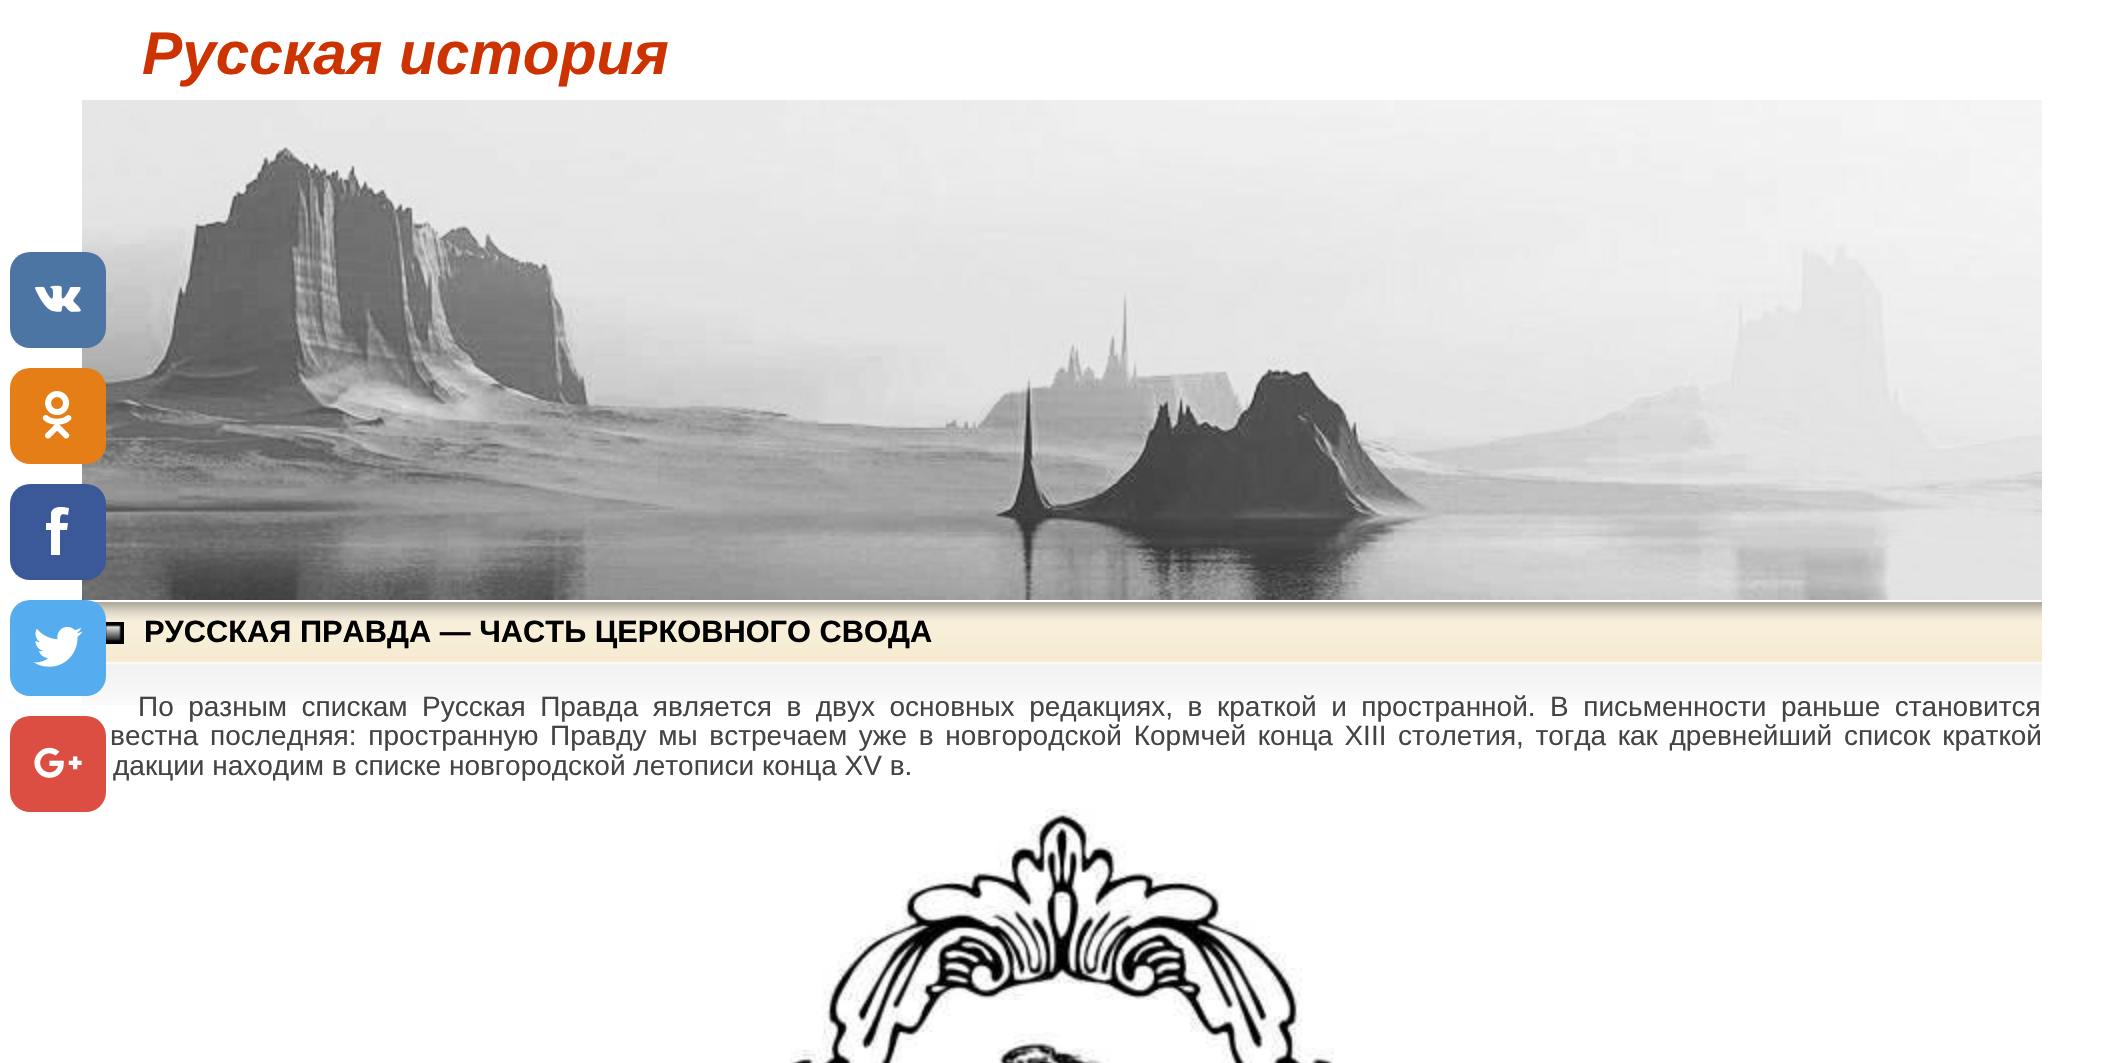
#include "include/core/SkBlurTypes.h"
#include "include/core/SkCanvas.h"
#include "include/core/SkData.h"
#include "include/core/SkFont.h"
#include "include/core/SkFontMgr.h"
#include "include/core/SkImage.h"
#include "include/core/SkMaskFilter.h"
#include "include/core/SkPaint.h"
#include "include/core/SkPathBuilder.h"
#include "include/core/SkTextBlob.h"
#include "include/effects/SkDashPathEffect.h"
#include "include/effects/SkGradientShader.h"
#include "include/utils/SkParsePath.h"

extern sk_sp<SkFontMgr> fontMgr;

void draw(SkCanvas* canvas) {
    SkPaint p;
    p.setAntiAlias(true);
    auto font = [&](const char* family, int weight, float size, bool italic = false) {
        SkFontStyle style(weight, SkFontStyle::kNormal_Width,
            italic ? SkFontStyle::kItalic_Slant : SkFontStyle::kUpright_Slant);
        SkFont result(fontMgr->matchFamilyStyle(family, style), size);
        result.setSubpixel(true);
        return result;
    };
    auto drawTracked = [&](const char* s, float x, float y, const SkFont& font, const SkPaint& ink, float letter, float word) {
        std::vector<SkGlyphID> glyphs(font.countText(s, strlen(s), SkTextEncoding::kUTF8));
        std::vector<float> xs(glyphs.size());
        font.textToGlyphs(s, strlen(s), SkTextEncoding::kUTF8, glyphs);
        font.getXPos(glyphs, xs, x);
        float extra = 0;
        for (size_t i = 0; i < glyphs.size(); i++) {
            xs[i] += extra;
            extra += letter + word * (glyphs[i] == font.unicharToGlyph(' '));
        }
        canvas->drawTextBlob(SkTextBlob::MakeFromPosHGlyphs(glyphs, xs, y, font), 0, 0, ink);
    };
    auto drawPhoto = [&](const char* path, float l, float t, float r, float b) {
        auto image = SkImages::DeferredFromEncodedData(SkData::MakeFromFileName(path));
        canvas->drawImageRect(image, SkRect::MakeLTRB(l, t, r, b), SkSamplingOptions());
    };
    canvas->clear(0xFFFFFFFF);
    auto font1 = font("Liberation Sans", 700, 60.25f, true);
    p.setColor(0xFFCC3300);
    canvas->drawString("Русская история", 142, 74, font1, p);
    drawPhoto("media/5.png", 82, 100, 2042, 600);
    p.setColor(0xFF4D75A3);
    canvas->drawRoundRect(SkRect::MakeLTRB(10, 252, 106, 348), 20, 20, p);
    drawPhoto("media/1.png", 35, 285, 81, 312);
    p.setColor(0xFFE67E17);
    canvas->drawRoundRect(SkRect::MakeLTRB(10, 368, 106, 464), 20, 20, p);
    drawPhoto("media/2.png", 42, 391, 72, 439);
    p.setColor(0xFF3B5998);
    canvas->drawRoundRect(SkRect::MakeLTRB(10, 484, 106, 580), 20, 20, p);
    p.setColor(0xFFFFFFFF);
    canvas->drawPath(SkPathBuilder().moveTo(46, 523).lineTo(51, 523).lineTo(51, 513).cubicTo(53, 505, 63, 507, 69, 508).lineTo(68, 515).cubicTo(60, 513, 60, 515, 60, 523).lineTo(68, 523).lineTo(67, 530).lineTo(60, 530).lineTo(60, 555).lineTo(51, 555).lineTo(51, 530).lineTo(46, 530).close().detach(), p);
    drawPhoto("media/6.png", 82, 602, 2042, 705);
    p.setColor(0xFF55ACEE);
    canvas->drawRoundRect(SkRect::MakeLTRB(10, 600, 106, 696), 20, 20, p);
    drawPhoto("media/3.png", 33, 626, 83, 667);
    p.setColor(0xFFDC4E41);
    canvas->drawRoundRect(SkRect::MakeLTRB(10, 716, 106, 812), 20, 20, p);
    drawPhoto("media/4.png", 34, 747, 82, 778);
    drawPhoto("media/7.png", 106, 622, 124, 644);
    auto font2 = font("Liberation Sans", 700, 30.8f);
    p.setColor(0xFF000000);
    canvas->drawString("РУССКАЯ ПРАВДА — ЧАСТЬ ЦЕРКОВНОГО СВОДА", 144, 642, font2, p);
    auto font3 = font("Liberation Sans", 400, 28);
    p.setColor(0xFF444444);
    drawTracked("По разным спискам Русская Правда является в двух основных редакциях, в краткой и пространной. В письменности раньше становится", 138, 716, font3, p, 0, 6.75f);
    drawTracked("вестна последняя: пространную Правду мы встречаем уже в новгородской Кормчей конца XIII столетия, тогда как древнейший список краткой", 110, 745, font3, p, 0, 3.9f);
    canvas->drawString("дакции находим в списке новгородской летописи конца XV в.", 113, 775, font3, p);
    drawPhoto("media/8.png", 790, 808, 1334, 1063);
}
